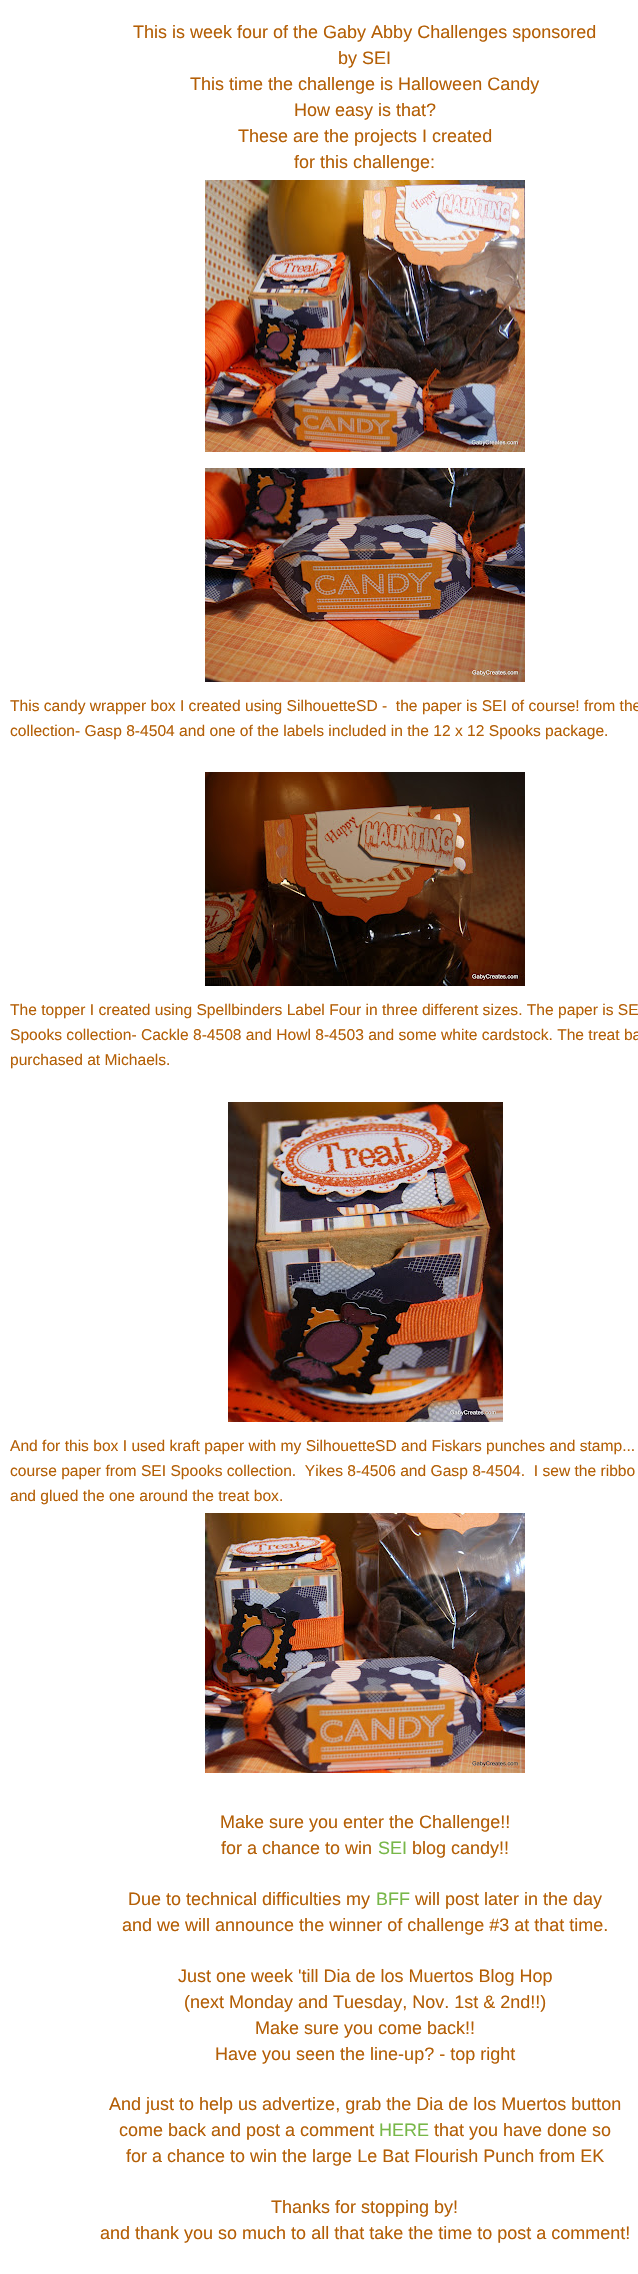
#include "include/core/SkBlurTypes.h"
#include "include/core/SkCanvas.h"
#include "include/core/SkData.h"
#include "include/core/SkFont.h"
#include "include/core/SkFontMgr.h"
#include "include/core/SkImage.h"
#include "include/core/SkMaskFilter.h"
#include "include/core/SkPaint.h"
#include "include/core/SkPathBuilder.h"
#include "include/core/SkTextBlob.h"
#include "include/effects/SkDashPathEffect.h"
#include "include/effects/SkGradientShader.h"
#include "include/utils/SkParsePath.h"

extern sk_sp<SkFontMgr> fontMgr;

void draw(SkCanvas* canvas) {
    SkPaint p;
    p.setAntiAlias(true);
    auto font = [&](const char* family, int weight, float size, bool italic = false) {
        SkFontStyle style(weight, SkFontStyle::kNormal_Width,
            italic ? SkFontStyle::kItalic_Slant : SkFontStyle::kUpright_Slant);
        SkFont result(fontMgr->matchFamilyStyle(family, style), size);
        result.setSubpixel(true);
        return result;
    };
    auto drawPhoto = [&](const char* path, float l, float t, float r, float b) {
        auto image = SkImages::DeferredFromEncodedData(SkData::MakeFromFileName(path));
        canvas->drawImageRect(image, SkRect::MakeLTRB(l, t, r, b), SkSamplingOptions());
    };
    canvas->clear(0xFFFFFFFF);
    auto font1 = font("Liberation Sans", 400, 18);
    p.setColor(0xFFB45F06);
    {
        const struct { const char* s; float x, y; } items[] = {
            {"This is week four of the Gaby Abby Challenges sponsored", 133, 38},
            {"by SEI", 338, 64},
            {"This time the challenge is Halloween Candy", 190, 90},
            {"How easy is that?", 294, 116},
            {"These are the projects I created", 238, 142},
            {"for this challenge:", 294, 168},
        };
        for (auto [s, x, y] : items) {
            canvas->drawString(s, x, y, font1, p);
        }
    }
    drawPhoto("media/1.png", 205, 180, 525, 452);
    drawPhoto("media/2.png", 205, 468, 525, 682);
    auto font2 = font("Liberation Sans", 400, 15.6f);
    canvas->drawString("This candy wrapper box I created using SilhouetteSD -  the paper is SEI of course! from the", 10, 711, font2, p);
    canvas->drawString("collection- Gasp 8-4504 and one of the labels included in the 12 x 12 Spooks package.", 10, 736, font2, p);
    drawPhoto("media/3.png", 205, 772, 525, 986);
    {
        const struct { const char* s; float x, y; } items[] = {
            {"The topper I created using Spellbinders Label Four in three different sizes. The paper is SE", 10, 1015},
            {"Spooks collection- Cackle 8-4508 and Howl 8-4503 and some white cardstock. The treat ba", 10, 1040},
            {"purchased at Michaels.", 10, 1065},
        };
        for (auto [s, x, y] : items) {
            canvas->drawString(s, x, y, font2, p);
        }
    }
    drawPhoto("media/4.png", 228, 1102, 503, 1422);
    {
        const struct { const char* s; float x, y; } items[] = {
            {"And for this box I used kraft paper with my SilhouetteSD and Fiskars punches and stamp...", 10, 1451},
            {"course paper from SEI Spooks collection.  Yikes 8-4506 and Gasp 8-4504.  I sew the ribbo", 10, 1476},
            {"and glued the one around the treat box.", 10, 1501},
        };
        for (auto [s, x, y] : items) {
            canvas->drawString(s, x, y, font2, p);
        }
    }
    drawPhoto("media/5.png", 205, 1513, 525, 1773);
    canvas->drawString("Make sure you enter the Challenge!!", 220, 1828, font1, p);
    canvas->drawString("for a chance to win", 221, 1854, font1, p);
    p.setColor(0xFF78B749);
    canvas->drawString("SEI", 378, 1854, font1, p);
    p.setColor(0xFFB45F06);
    canvas->drawString("blog candy!!", 412, 1854, font1, p);
    canvas->drawString("Due to technical difficulties my", 128, 1905, font1, p);
    p.setColor(0xFF78B749);
    canvas->drawString("BFF", 376, 1905, font1, p);
    p.setColor(0xFFB45F06);
    {
        const struct { const char* s; float x, y; } items[] = {
            {"will post later in the day", 415, 1905},
            {"and we will announce the winner of challenge #3 at that time.", 122, 1931},
            {"Just one week 'till Dia de los Muertos Blog Hop", 178, 1982},
            {"(next Monday and Tuesday, Nov. 1st & 2nd!!)", 184, 2008},
            {"Make sure you come back!!", 255, 2034},
            {"Have you seen the line-up? - top right", 215, 2060},
            {"And just to help us advertize, grab the Dia de los Muertos button", 109, 2110},
            {"come back and post a comment", 119, 2136},
        };
        for (auto [s, x, y] : items) {
            canvas->drawString(s, x, y, font1, p);
        }
    }
    p.setColor(0xFF78B749);
    canvas->drawString("HERE", 379, 2136, font1, p);
    p.setColor(0xFFB45F06);
    {
        const struct { const char* s; float x, y; } items[] = {
            {"that you have done so", 434, 2136},
            {"for a chance to win the large Le Bat Flourish Punch from EK", 126, 2162},
            {"Thanks for stopping by!", 271, 2213},
            {"and thank you so much to all that take the time to post a comment!", 100, 2239},
        };
        for (auto [s, x, y] : items) {
            canvas->drawString(s, x, y, font1, p);
        }
    }
}
